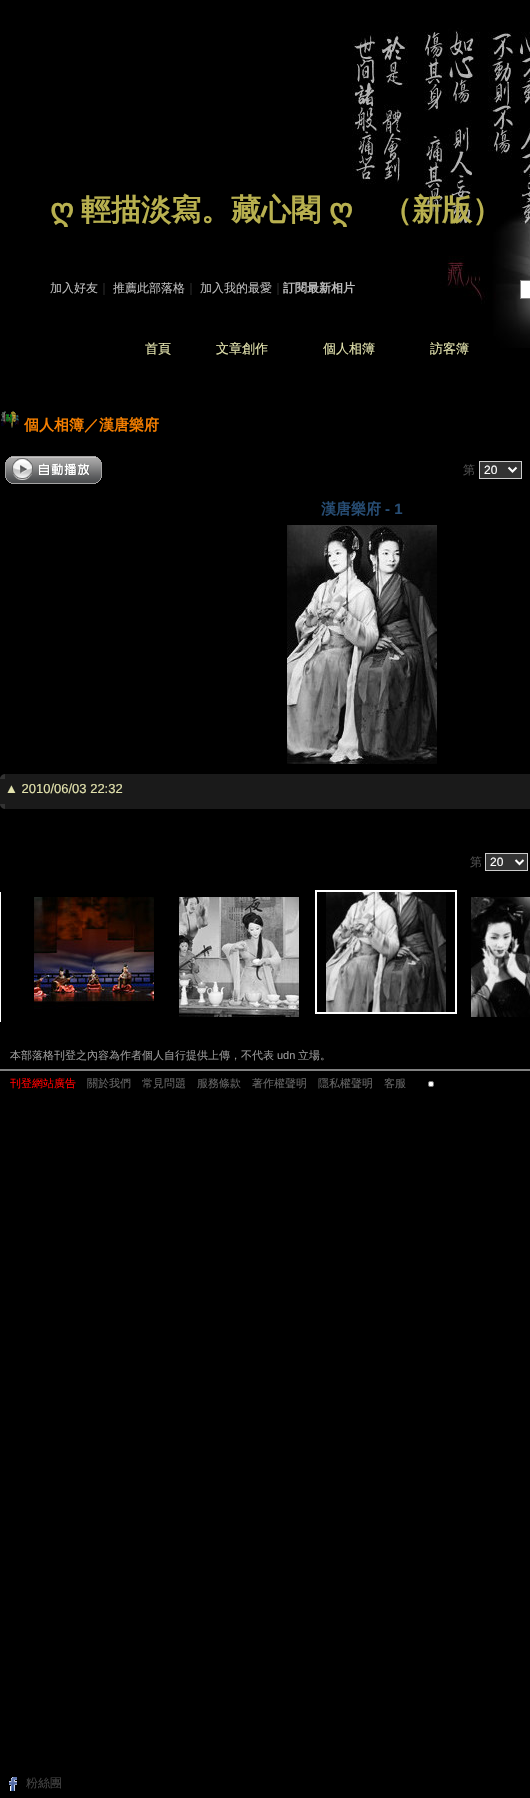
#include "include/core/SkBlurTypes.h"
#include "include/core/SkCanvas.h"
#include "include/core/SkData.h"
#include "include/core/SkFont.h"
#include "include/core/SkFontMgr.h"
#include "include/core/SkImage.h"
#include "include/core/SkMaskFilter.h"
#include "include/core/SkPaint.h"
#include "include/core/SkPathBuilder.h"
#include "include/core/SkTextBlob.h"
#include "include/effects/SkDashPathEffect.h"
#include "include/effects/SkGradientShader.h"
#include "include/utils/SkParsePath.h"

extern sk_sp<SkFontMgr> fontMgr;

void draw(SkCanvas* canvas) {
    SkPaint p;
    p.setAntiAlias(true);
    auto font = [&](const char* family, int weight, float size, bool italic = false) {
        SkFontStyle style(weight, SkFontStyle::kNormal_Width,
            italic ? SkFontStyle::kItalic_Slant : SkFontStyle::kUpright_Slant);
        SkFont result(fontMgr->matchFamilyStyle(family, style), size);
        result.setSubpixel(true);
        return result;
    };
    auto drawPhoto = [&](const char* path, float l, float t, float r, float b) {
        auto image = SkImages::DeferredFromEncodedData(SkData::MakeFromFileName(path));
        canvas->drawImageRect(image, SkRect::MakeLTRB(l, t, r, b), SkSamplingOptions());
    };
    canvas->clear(0xFF000000);
    drawPhoto("media/1.png", 352, 28, 530, 348);
    auto font1 = font("DejaVu Sans", 700, 30);
    p.setColor(0xFFB8B04F);
    canvas->drawString("ღ", 50, 220, font1, p);
    auto font2 = font("WenQuanYi Zen Hei", 700, 30);
    canvas->drawString("輕描淡寫。藏心閣", 81, 220, font2, p);
    canvas->drawString("ღ", 329, 220, font1, p);
    canvas->drawString("（新版）", 382, 220, font2, p);
    auto font3 = font("WenQuanYi Zen Hei", 500, 12);
    p.setColor(0xFFBDBDBD);
    canvas->drawString("加入好友", 50, 292, font3, p);
    p.setColor(0xFF333333);
    canvas->drawString("｜", 98, 292, font3, p);
    p.setColor(0xFFBDBDBD);
    canvas->drawString("推薦此部落格", 113, 292, font3, p);
    p.setColor(0xFF333333);
    canvas->drawString("｜", 185, 292, font3, p);
    p.setColor(0xFFBDBDBD);
    canvas->drawString("加入我的最愛", 200, 292, font3, p);
    p.setColor(0xFF333333);
    canvas->drawString("｜", 272, 292, font3, p);
    auto font4 = font("WenQuanYi Zen Hei", 700, 12);
    p.setColor(0xFFBDBDBD);
    canvas->drawString("訂閱最新相片", 283, 292, font4, p);
    p.setColor(0xFFFFFFFF);
    canvas->drawRect(SkRect::MakeLTRB(520.5f, 280.5f, 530.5f, 298.5f), p);
    p.setStyle(SkPaint::kStroke_Style);
    p.setStrokeWidth(1);
    p.setColor(0xFF808080);
    canvas->drawRect(SkRect::MakeLTRB(520.5f, 280.5f, 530.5f, 298.5f), p);
    auto font5 = font("WenQuanYi Zen Hei", 500, 13);
    p.setStyle(SkPaint::kFill_Style);
    p.setColor(0xFFE2E2AD);
    {
        const struct { const char* s; float x, y; } items[] = {
            {"首頁", 145, 353},
            {"文章創作", 216, 353},
            {"個人相簿", 323, 353},
            {"訪客簿", 430, 353},
        };
        for (auto [s, x, y] : items) {
            canvas->drawString(s, x, y, font5, p);
        }
    }
    drawPhoto("media/2.png", 1, 411, 19, 428);
    auto font6 = font("WenQuanYi Zen Hei", 700, 15);
    p.setColor(0xFFF47E00);
    canvas->drawString("個人相簿／漢唐樂府", 24, 430, font6, p);
    drawPhoto("media/3.png", 5, 456, 102, 484);
    p.setColor(0xFF4D4D4D);
    canvas->drawString("第", 463, 474, font3, p);
    p.setColor(0xFF333333);
    canvas->drawRect(SkRect::MakeLTRB(479.5f, 461.5f, 521.5f, 478.5f), p);
    p.setStyle(SkPaint::kStroke_Style);
    p.setColor(0xFFCCCCCC);
    canvas->drawRect(SkRect::MakeLTRB(479.5f, 461.5f, 521.5f, 478.5f), p);
    p.setStrokeWidth(2);
    p.setColor(0xFFFFFFFF);
    canvas->drawPath(SkPathBuilder().moveTo(508.5f, 467.5f).lineTo(512.5f, 471.5f).lineTo(516.5f, 467.5f).detach(), p);
    auto font7 = font("Liberation Sans", 400, 12);
    p.setStyle(SkPaint::kFill_Style);
    canvas->drawString("20", 484, 474, font7, p);
    p.setColor(0xFF274D74);
    canvas->drawString("漢唐樂府", 321, 514, font6, p);
    auto font8 = font("Liberation Sans", 700, 15);
    canvas->drawString("- 1", 385, 514, font8, p);
    drawPhoto("media/4.png", 287, 525, 437, 764);
    drawPhoto("media/5.png", 0, 774, 5, 779);
    p.setColor(0xFF1A1A1A);
    canvas->drawRect(SkRect::MakeLTRB(5, 774, 530, 779), p);
    canvas->drawRect(SkRect::MakeLTRB(0, 779, 530, 804), p);
    auto font9 = font("Liberation Sans", 400, 13);
    p.setColor(0xFFE2E2AD);
    canvas->drawString("▲ 2010/06/03 22:32", 5, 793, font9, p);
    drawPhoto("media/6.png", 0, 804, 5, 809);
    p.setColor(0xFF1A1A1A);
    canvas->drawRect(SkRect::MakeLTRB(5, 804, 530, 809), p);
    p.setColor(0xFF4D4D4D);
    canvas->drawString("第", 470, 866, font3, p);
    p.setColor(0xFF333333);
    canvas->drawRect(SkRect::MakeLTRB(485.5f, 853.5f, 527.5f, 870.5f), p);
    p.setStyle(SkPaint::kStroke_Style);
    p.setStrokeWidth(1);
    p.setColor(0xFFCCCCCC);
    canvas->drawRect(SkRect::MakeLTRB(485.5f, 853.5f, 527.5f, 870.5f), p);
    p.setStrokeWidth(2);
    p.setColor(0xFFFFFFFF);
    canvas->drawPath(SkPathBuilder().moveTo(515.5f, 860).lineTo(519.5f, 864).lineTo(523.5f, 860).detach(), p);
    p.setStyle(SkPaint::kFill_Style);
    canvas->drawString("20", 490, 866, font7, p);
    canvas->drawRect(SkRect::MakeLTRB(0, 892, 1, 1022), p);
    drawPhoto("media/7.png", 34, 897, 154, 1009);
    drawPhoto("media/8.png", 179, 897, 299, 1017);
    p.setStyle(SkPaint::kStroke_Style);
    canvas->drawRect(SkRect::MakeLTRB(316, 891, 456, 1013), p);
    drawPhoto("media/9.png", 326, 892, 446, 1012);
    drawPhoto("media/10.png", 471, 897, 530, 1017);
    p.setStyle(SkPaint::kFill_Style);
    p.setColor(0xFF808080);
    canvas->drawRect(SkRect::MakeLTRB(0, 1069, 530, 1071), p);
    auto font10 = font("WenQuanYi Zen Hei", 500, 11);
    p.setColor(0xFF999999);
    canvas->drawString("本部落格刊登之內容為作者個人自行提供上傳，不代表", 10, 1059, font10, p);
    auto font11 = font("Liberation Sans", 400, 11);
    canvas->drawString("udn", 277, 1059, font11, p);
    canvas->drawString("立場。", 298, 1059, font10, p);
    p.setColor(0xFFFF0000);
    canvas->drawString("刊登網站廣告", 10, 1087, font10, p);
    p.setColor(0xFF666666);
    {
        const struct { const char* s; float x, y; } items[] = {
            {"關於我們", 87, 1087},
            {"常見問題", 142, 1087},
            {"服務條款", 197, 1087},
            {"著作權聲明", 252, 1087},
            {"隱私權聲明", 318, 1087},
            {"客服", 384, 1087},
        };
        for (auto [s, x, y] : items) {
            canvas->drawString(s, x, y, font10, p);
        }
    }
    p.setColor(0xFFFFFFFF);
    canvas->drawRoundRect(SkRect::MakeLTRB(428.5f, 1081.5f, 433.5f, 1086.5f), 1.5f, 1.5f, p);
    p.setStyle(SkPaint::kStroke_Style);
    p.setStrokeWidth(1);
    p.setColor(0xFF767676);
    canvas->drawRoundRect(SkRect::MakeLTRB(428.5f, 1081.5f, 433.5f, 1086.5f), 1.5f, 1.5f, p);
    drawPhoto("media/11.png", 9, 1777, 17, 1791);
    p.setStyle(SkPaint::kFill_Style);
    p.setColor(0xFF444444);
    canvas->drawString("粉絲團", 26, 1787, font3, p);
}
